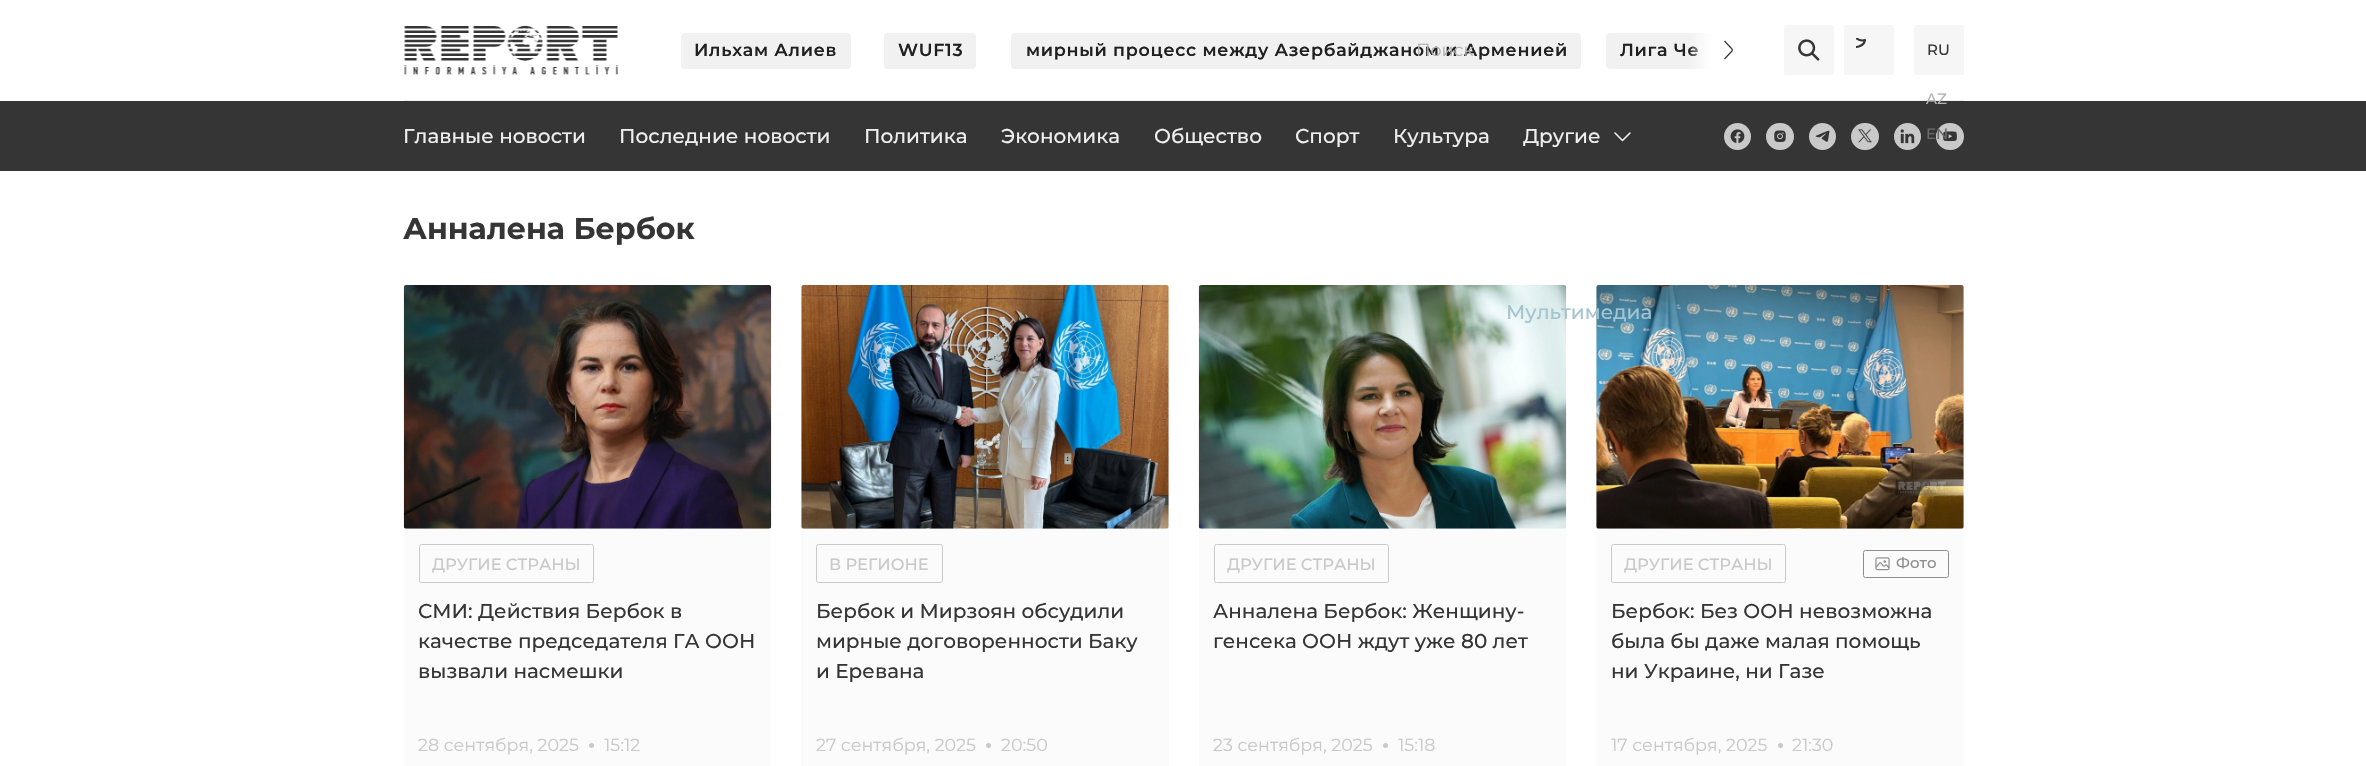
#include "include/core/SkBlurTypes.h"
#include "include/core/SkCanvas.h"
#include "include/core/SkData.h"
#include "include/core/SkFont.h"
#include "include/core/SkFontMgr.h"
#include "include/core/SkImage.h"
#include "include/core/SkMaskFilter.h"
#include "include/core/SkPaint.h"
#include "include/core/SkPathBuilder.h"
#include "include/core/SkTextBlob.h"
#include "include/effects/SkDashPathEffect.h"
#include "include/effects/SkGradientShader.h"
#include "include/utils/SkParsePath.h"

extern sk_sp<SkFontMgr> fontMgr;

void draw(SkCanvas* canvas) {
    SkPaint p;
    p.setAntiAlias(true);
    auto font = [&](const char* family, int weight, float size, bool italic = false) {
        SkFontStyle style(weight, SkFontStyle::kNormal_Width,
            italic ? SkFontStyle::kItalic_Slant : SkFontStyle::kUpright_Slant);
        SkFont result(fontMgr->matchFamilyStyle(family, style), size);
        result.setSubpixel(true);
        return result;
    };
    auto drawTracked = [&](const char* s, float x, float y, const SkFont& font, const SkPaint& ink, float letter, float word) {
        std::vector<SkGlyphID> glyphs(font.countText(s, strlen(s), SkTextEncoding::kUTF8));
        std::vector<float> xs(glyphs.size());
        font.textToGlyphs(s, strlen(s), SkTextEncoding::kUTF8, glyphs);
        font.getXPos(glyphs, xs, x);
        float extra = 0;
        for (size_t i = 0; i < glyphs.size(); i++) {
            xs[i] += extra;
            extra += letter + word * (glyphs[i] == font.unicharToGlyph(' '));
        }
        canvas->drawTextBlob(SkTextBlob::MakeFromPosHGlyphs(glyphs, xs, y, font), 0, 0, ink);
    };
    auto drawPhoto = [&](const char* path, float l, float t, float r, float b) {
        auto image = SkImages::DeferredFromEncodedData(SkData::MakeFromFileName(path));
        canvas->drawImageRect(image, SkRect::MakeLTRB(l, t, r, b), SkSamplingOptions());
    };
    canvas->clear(0xFFFFFFFF);
    p.setColor(0xFFEFEFEF);
    canvas->drawRect(SkRect::MakeLTRB(404, 100, 1964, 101), p);
    drawPhoto("media/1.png", 404, 25, 618, 75);
    p.setColor(0xFFF1F1F1);
    canvas->drawRoundRect(SkRect::MakeLTRB(681, 33, 851, 69), 4, 4, p);
    auto font1 = font("Montserrat", 600, 17.5f);
    p.setColor(0xFF202020);
    drawTracked("Ильхам Алиев", 694, 56, font1, p, 0.7f, 0);
    p.setColor(0xFFF1F1F1);
    canvas->drawRoundRect(SkRect::MakeLTRB(884, 33, 976, 69), 4, 4, p);
    p.setColor(0xFF202020);
    drawTracked("WUF13", 898, 56, font1, p, 0.7f, 0);
    p.setColor(0xFFF1F1F1);
    canvas->drawRoundRect(SkRect::MakeLTRB(1011, 33, 1581, 69), 4, 4, p);
    p.setColor(0xFF202020);
    drawTracked("мирный процесс между Азербайджаном и Арменией", 1026, 56, font1, p, 0.7f, 0);
    p.setColor(0xFFF1F1F1);
    canvas->drawPath(SkPathBuilder().moveTo(1610, 33).lineTo(1734, 33).lineTo(1734, 69).lineTo(1610, 69).cubicTo(1608, 69, 1606, 67, 1606, 65).lineTo(1606, 37).cubicTo(1606, 35, 1608, 33, 1610, 33).close().detach(), p);
    p.setColor(0xFF202020);
    drawTracked("Лига Че", 1620, 56, font1, p, 0.7f, 0);
    {
        const SkColor colors[] = {0x00FFFFFF, 0xFFFFFFFF};
        const float stops[] = {0, 0.51f};
        const SkPoint ends[] = {{1688, 50}, {1734, 50}};
        p.setShader(SkGradientShader::MakeLinear(ends, colors, stops, 2, SkTileMode::kClamp));
        p.setAlpha(255);
    }
    canvas->drawRect(SkRect::MakeLTRB(1689, 33, 1734, 69), p);
    p.setStyle(SkPaint::kStroke_Style);
    p.setStrokeWidth(1.2f);
    p.setShader(nullptr);
    p.setColor(0xFF353535);
    canvas->drawPath(SkPathBuilder().moveTo(1724.5f, 41).lineTo(1732, 49).cubicTo(1732.5f, 49.5f, 1732.5f, 50.5f, 1732, 51).lineTo(1724.5f, 59).detach(), p);
    auto font2 = font("Montserrat", 400, 17.5f);
    p.setStyle(SkPaint::kFill_Style);
    p.setColor(0xFFB2B2B2);
    canvas->drawString("Поиск", 1416, 56, font2, p);
    p.setColor(0xFFF6F6F6);
    canvas->drawRoundRect(SkRect::MakeLTRB(1784, 25, 1834, 75), 2.5f, 2.5f, p);
    drawPhoto("media/2.png", 1798, 39, 1820, 61);
    canvas->drawRoundRect(SkRect::MakeLTRB(1844, 25, 1894, 75), 2.5f, 2.5f, p);
    canvas->save();
    canvas->clipRect(SkRect::MakeLTRB(1856, 38, 1881, 63));
    p.setStyle(SkPaint::kStroke_Style);
    p.setStrokeWidth(2.1f);
    p.setStrokeCap(SkPaint::kRound_Cap);
    p.setStrokeJoin(SkPaint::kRound_Join);
    p.setColor(0xFF353535);
    canvas->drawPath(SkPathBuilder().moveTo(1853, 31).cubicTo(1853, 37.5f, 1859.5f, 42, 1865, 40).cubicTo(1864.5f, 43, 1862.5f, 45, 1860, 46).cubicTo(1848, 51.5f, 1841, 32.5f, 1853.5f, 28.5f).close().detach(), p);
    canvas->restore();
    p.setStyle(SkPaint::kFill_Style);
    p.setColor(0xFFF6F6F6);
    canvas->drawRoundRect(SkRect::MakeLTRB(1914, 25, 1964, 75), 2.5f, 2.5f, p);
    auto font3 = font("Montserrat", 500, 15);
    p.setColor(0xFF353535);
    canvas->drawString("RU", 1927, 55, font3, p);
    canvas->drawRect(SkRect::MakeLTRB(0, 101, 2366, 171), p);
    p.setColor(0xFFB2B2B2);
    canvas->drawString("AZ", 1926, 104, font3, p);
    p.setColor(0xFFC9C9C9);
    canvas->drawRoundRect(SkRect::MakeLTRB(1936, 123, 1964, 150), 13.5f, 13.5f, p);
    drawPhoto("media/8.png", 1943, 131, 1957, 142);
    p.setColor(0xFF696969);
    canvas->drawString("EN", 1926, 139, font3, p);
    auto font4 = font("Montserrat", 500, 20);
    p.setColor(0xFFEFEFEF);
    {
        const struct { const char* s; float x, y; } items[] = {
            {"Главные новости", 403, 143},
            {"Последние новости", 619, 143},
            {"Политика", 864, 143},
            {"Экономика", 1001, 143},
            {"Общество", 1154, 143},
            {"Спорт", 1295, 143},
            {"Культура", 1393, 143},
            {"Другие", 1523, 143},
        };
        for (auto [s, x, y] : items) {
            canvas->drawString(s, x, y, font4, p);
        }
    }
    p.setStyle(SkPaint::kStroke_Style);
    p.setStrokeWidth(1.6f);
    canvas->drawPath(SkPathBuilder().moveTo(1630, 133).lineTo(1622.5f, 140.5f).lineTo(1615, 133).detach(), p);
    drawPhoto("media/11.png", 1198, 285, 1567, 529);
    drawPhoto("media/12.png", 1596, 285, 1964, 529);
    p.setStyle(SkPaint::kFill_Style);
    p.setColor(0xFFA4C4D0);
    canvas->drawString("Мультимедиа", 1506, 319, font4, p);
    p.setColor(0xFFC9C9C9);
    canvas->drawCircle(1737.5f, 136.5f, 13.5f, p);
    drawPhoto("media/3.png", 1730, 129, 1745, 144);
    canvas->drawRoundRect(SkRect::MakeLTRB(1766, 123, 1794, 150), 13.5f, 13.5f, p);
    drawPhoto("media/4.png", 1774, 130, 1786, 142);
    canvas->drawCircle(1822.5f, 136.5f, 13.5f, p);
    drawPhoto("media/5.png", 1815, 130, 1830, 142);
    canvas->drawRoundRect(SkRect::MakeLTRB(1851, 123, 1879, 150), 13.5f, 13.5f, p);
    drawPhoto("media/6.png", 1858, 129, 1872, 143);
    canvas->drawCircle(1907.5f, 136.5f, 13.5f, p);
    drawPhoto("media/7.png", 1900, 129, 1915, 144);
    auto font5 = font("Montserrat", 700, 30);
    p.setColor(0xFF353535);
    canvas->drawString("Анналена Бербок", 403, 239, font5, p);
    drawPhoto("media/9.png", 403, 285, 772, 529);
    p.setColor(0xFFFBFBFB);
    canvas->drawRect(SkRect::MakeLTRB(404, 529, 771, 766), p);
    p.setStyle(SkPaint::kStroke_Style);
    p.setStrokeWidth(1);
    p.setStrokeCap(SkPaint::kButt_Cap);
    p.setStrokeJoin(SkPaint::kMiter_Join);
    p.setColor(0xFFC9C9C9);
    canvas->drawRoundRect(SkRect::MakeLTRB(419.5f, 544.5f, 593.5f, 582.5f), 2, 2, p);
    auto font6 = font("Montserrat", 500, 16.25f);
    p.setStyle(SkPaint::kFill_Style);
    canvas->drawString("ДРУГИЕ СТРАНЫ", 432, 570, font6, p);
    p.setColor(0xFF353535);
    {
        const struct { const char* s; float x, y; } items[] = {
            {"СМИ: Действия Бербок в", 418, 618},
            {"качестве председателя ГА ООН", 418, 648},
            {"вызвали насмешки", 418, 678},
        };
        for (auto [s, x, y] : items) {
            canvas->drawString(s, x, y, font4, p);
        }
    }
    p.setColor(0xFFC9C9C9);
    canvas->drawString("28 сентября, 2025", 418, 751, font2, p);
    canvas->drawCircle(591.5f, 745.5f, 2.5f, p);
    canvas->drawString("15:12", 604, 751, font2, p);
    drawPhoto("media/10.png", 801, 285, 1169, 529);
    p.setColor(0xFFFBFBFB);
    canvas->drawRect(SkRect::MakeLTRB(801, 529, 1169, 766), p);
    p.setStyle(SkPaint::kStroke_Style);
    p.setColor(0xFFC9C9C9);
    canvas->drawRoundRect(SkRect::MakeLTRB(816.5f, 544.5f, 942.5f, 582.5f), 2, 2, p);
    p.setStyle(SkPaint::kFill_Style);
    canvas->drawString("В РЕГИОНЕ", 829, 570, font6, p);
    p.setColor(0xFF353535);
    {
        const struct { const char* s; float x, y; } items[] = {
            {"Бербок и Мирзоян обсудили", 816, 618},
            {"мирные договоренности Баку", 816, 648},
            {"и Еревана", 816, 678},
        };
        for (auto [s, x, y] : items) {
            canvas->drawString(s, x, y, font4, p);
        }
    }
    p.setColor(0xFFC9C9C9);
    canvas->drawString("27 сентября, 2025", 816, 751, font2, p);
    canvas->drawCircle(988.5f, 745.5f, 2.5f, p);
    canvas->drawString("20:50", 1001, 751, font2, p);
    p.setColor(0xFFFBFBFB);
    canvas->drawRect(SkRect::MakeLTRB(1199, 529, 1566, 766), p);
    p.setStyle(SkPaint::kStroke_Style);
    p.setColor(0xFFC9C9C9);
    canvas->drawRoundRect(SkRect::MakeLTRB(1214.5f, 544.5f, 1388.5f, 582.5f), 2, 2, p);
    p.setStyle(SkPaint::kFill_Style);
    canvas->drawString("ДРУГИЕ СТРАНЫ", 1227, 570, font6, p);
    p.setColor(0xFF353535);
    canvas->drawString("Анналена Бербок: Женщину-", 1213, 618, font4, p);
    canvas->drawString("генсека ООН ждут уже 80 лет", 1213, 648, font4, p);
    p.setColor(0xFFC9C9C9);
    canvas->drawString("23 сентября, 2025", 1213, 751, font2, p);
    canvas->drawCircle(1385.5f, 745.5f, 2.5f, p);
    canvas->drawString("15:18", 1398, 751, font2, p);
    p.setColor(0xFFFBFBFB);
    canvas->drawRect(SkRect::MakeLTRB(1596, 529, 1964, 766), p);
    p.setStyle(SkPaint::kStroke_Style);
    p.setColor(0xFFC9C9C9);
    canvas->drawRoundRect(SkRect::MakeLTRB(1611.5f, 544.5f, 1785.5f, 582.5f), 2, 2, p);
    p.setStyle(SkPaint::kFill_Style);
    canvas->drawString("ДРУГИЕ СТРАНЫ", 1624, 570, font6, p);
    p.setStyle(SkPaint::kStroke_Style);
    p.setColor(0xFF8E8E8E);
    canvas->drawRoundRect(SkRect::MakeLTRB(1863.5f, 550.5f, 1948.5f, 577.5f), 2, 2, p);
    drawPhoto("media/13.png", 1875, 557, 1890, 571);
    p.setStyle(SkPaint::kFill_Style);
    canvas->drawString("Фото", 1896, 568, font3, p);
    p.setColor(0xFF353535);
    {
        const struct { const char* s; float x, y; } items[] = {
            {"Бербок: Без ООН невозможна", 1611, 618},
            {"была бы даже малая помощь", 1611, 648},
            {"ни Украине, ни Газе", 1611, 678},
        };
        for (auto [s, x, y] : items) {
            canvas->drawString(s, x, y, font4, p);
        }
    }
    p.setColor(0xFFC9C9C9);
    canvas->drawString("17 сентября, 2025", 1611, 751, font2, p);
    canvas->drawCircle(1780.5f, 745.5f, 2.5f, p);
    canvas->drawString("21:30", 1792, 751, font2, p);
}
